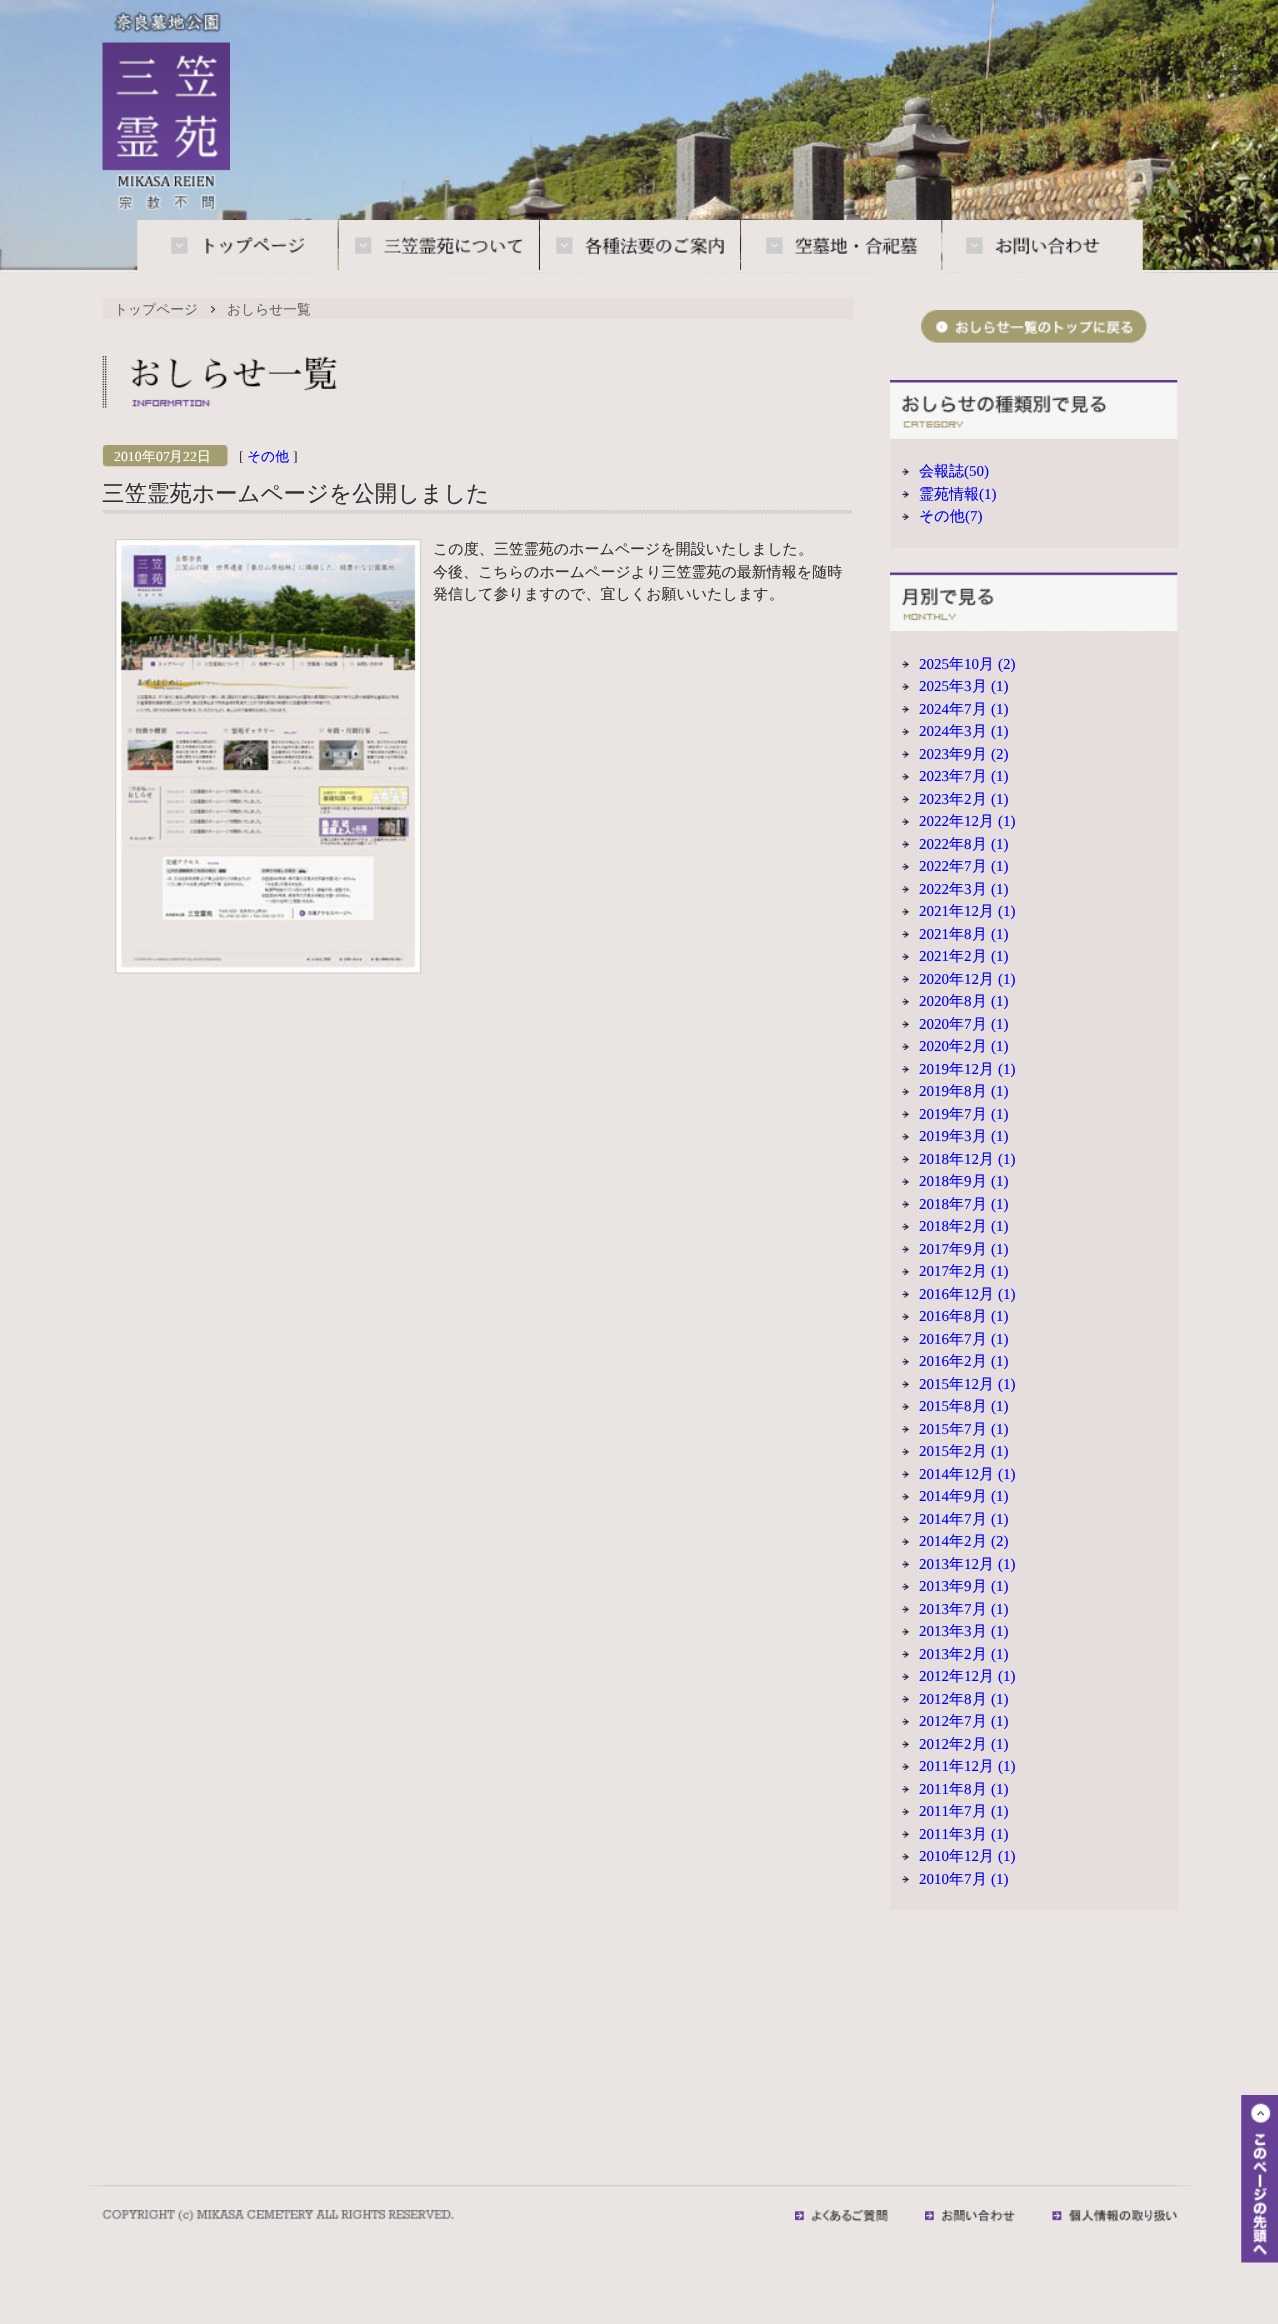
#include "include/core/SkBlurTypes.h"
#include "include/core/SkCanvas.h"
#include "include/core/SkData.h"
#include "include/core/SkFont.h"
#include "include/core/SkFontMgr.h"
#include "include/core/SkImage.h"
#include "include/core/SkMaskFilter.h"
#include "include/core/SkPaint.h"
#include "include/core/SkPathBuilder.h"
#include "include/core/SkTextBlob.h"
#include "include/effects/SkDashPathEffect.h"
#include "include/effects/SkGradientShader.h"
#include "include/utils/SkParsePath.h"

extern sk_sp<SkFontMgr> fontMgr;

void draw(SkCanvas* canvas) {
    SkPaint p;
    p.setAntiAlias(true);
    auto font = [&](const char* family, int weight, float size, bool italic = false) {
        SkFontStyle style(weight, SkFontStyle::kNormal_Width,
            italic ? SkFontStyle::kItalic_Slant : SkFontStyle::kUpright_Slant);
        SkFont result(fontMgr->matchFamilyStyle(family, style), size);
        result.setSubpixel(true);
        return result;
    };
    auto drawPhoto = [&](const char* path, float l, float t, float r, float b) {
        auto image = SkImages::DeferredFromEncodedData(SkData::MakeFromFileName(path));
        canvas->drawImageRect(image, SkRect::MakeLTRB(l, t, r, b), SkSamplingOptions());
    };
    canvas->clear(0xFFEAE5E3);
    drawPhoto("media/1.png", 0, 0, 1278, 273);
    drawPhoto("media/2.png", 102, 12, 230, 210);
    drawPhoto("media/3.png", 0, 266, 1278, 273);
    drawPhoto("media/4.png", 137, 220, 338, 273);
    drawPhoto("media/5.png", 137, 220, 338, 273);
    drawPhoto("media/6.png", 338, 220, 539, 273);
    drawPhoto("media/7.png", 338, 220, 539, 273);
    drawPhoto("media/8.png", 540, 220, 740, 273);
    p.setColor(0x80E9E5E3);
    canvas->drawRect(SkRect::MakeLTRB(540, 272, 740, 273), p);
    drawPhoto("media/9.png", 741, 220, 942, 273);
    drawPhoto("media/10.png", 741, 220, 942, 273);
    drawPhoto("media/11.png", 942, 220, 1143, 273);
    drawPhoto("media/12.png", 942, 220, 1143, 273);
    p.setColor(0xFFE5DEDC);
    canvas->drawRect(SkRect::MakeLTRB(103, 298, 853, 319), p);
    drawPhoto("media/13.png", 103, 298, 104, 319);
    auto font1 = font("WenQuanYi Zen Hei", 500, 13.75f);
    p.setColor(0xFF666666);
    canvas->drawString("トップページ", 114, 314, font1, p);
    drawPhoto("media/14.png", 211, 306, 215, 313);
    canvas->drawString("おしらせ一覧", 227, 314, font1, p);
    drawPhoto("media/15.png", 102, 356, 337, 408);
    drawPhoto("media/16.png", 102, 445, 228, 467);
    auto font2 = font("Liberation Serif", 400, 13.75f);
    p.setColor(0xFFFFFFFF);
    canvas->drawString("2010", 114, 461, font2, p);
    canvas->drawString("年", 142, 461, font1, p);
    canvas->drawString("07", 156, 461, font2, p);
    canvas->drawString("月", 169, 461, font1, p);
    canvas->drawString("22", 183, 461, font2, p);
    canvas->drawString("日", 197, 461, font1, p);
    p.setColor(0xFF333333);
    canvas->drawString("[", 239, 461, font2, p);
    p.setColor(0xFF0000FF);
    canvas->drawString("その他", 247, 461, font1, p);
    p.setColor(0xFF333333);
    canvas->drawString("]", 293, 461, font2, p);
    drawPhoto("media/17.png", 103, 510, 852, 514);
    auto font3 = font("WenQuanYi Zen Hei", 500, 22.5f);
    canvas->drawString("三笠霊苑ホームページを公開しました", 102, 501, font3, p);
    drawPhoto("media/18.png", 115, 539, 422, 974);
    auto font4 = font("WenQuanYi Zen Hei", 500, 15);
    {
        const struct { const char* s; float x, y; } items[] = {
            {"この度、三笠霊苑のホームページを開設いたしました。", 433, 554},
            {"今後、こちらのホームページより三笠霊苑の最新情報を随時", 433, 577},
            {"発信して参りますので、宜しくお願いいたします。", 433, 599},
        };
        for (auto [s, x, y] : items) {
            canvas->drawString(s, x, y, font4, p);
        }
    }
    drawPhoto("media/19.png", 921, 310, 1147, 343);
    drawPhoto("media/20.png", 921, 321, 1147, 343);
    drawPhoto("media/21.png", 890, 380, 1178, 439);
    p.setColor(0xFFE5DEDC);
    canvas->drawRect(SkRect::MakeLTRB(890, 439, 1178, 548), p);
    drawPhoto("media/22.png", 902, 468, 909, 475);
    p.setColor(0xFF0000FF);
    canvas->drawString("会報誌", 919, 476, font4, p);
    auto font5 = font("Liberation Serif", 400, 15);
    canvas->drawString("(50)", 964, 476, font5, p);
    drawPhoto("media/23.png", 902, 491, 909, 498);
    canvas->drawString("霊苑情報", 919, 499, font4, p);
    canvas->drawString("(1)", 979, 499, font5, p);
    drawPhoto("media/22.png", 902, 513, 909, 520);
    canvas->drawString("その他", 919, 521, font4, p);
    canvas->drawString("(7)", 965, 521, font5, p);
    drawPhoto("media/24.png", 890, 572, 1178, 631);
    p.setColor(0xFFE5DEDC);
    canvas->drawRect(SkRect::MakeLTRB(890, 631, 1178, 1910), p);
    drawPhoto("media/23.png", 902, 661, 909, 668);
    p.setColor(0xFF0000FF);
    canvas->drawString("2025", 919, 669, font5, p);
    canvas->drawString("年", 949, 669, font4, p);
    canvas->drawString("10", 964, 669, font5, p);
    canvas->drawString("月", 979, 669, font4, p);
    canvas->drawString("(2)", 998, 669, font5, p);
    drawPhoto("media/22.png", 902, 683, 909, 690);
    canvas->drawString("2025", 919, 691, font5, p);
    canvas->drawString("年", 949, 691, font4, p);
    canvas->drawString("3", 964, 691, font5, p);
    canvas->drawString("月", 972, 691, font4, p);
    canvas->drawString("(1)", 991, 691, font5, p);
    drawPhoto("media/23.png", 902, 706, 909, 713);
    canvas->drawString("2024", 919, 714, font5, p);
    canvas->drawString("年", 949, 714, font4, p);
    canvas->drawString("7", 964, 714, font5, p);
    canvas->drawString("月", 972, 714, font4, p);
    canvas->drawString("(1)", 991, 714, font5, p);
    drawPhoto("media/22.png", 902, 728, 909, 735);
    canvas->drawString("2024", 919, 736, font5, p);
    canvas->drawString("年", 949, 736, font4, p);
    canvas->drawString("3", 964, 736, font5, p);
    canvas->drawString("月", 972, 736, font4, p);
    canvas->drawString("(1)", 991, 736, font5, p);
    drawPhoto("media/23.png", 902, 751, 909, 758);
    canvas->drawString("2023", 919, 759, font5, p);
    canvas->drawString("年", 949, 759, font4, p);
    canvas->drawString("9", 964, 759, font5, p);
    canvas->drawString("月", 972, 759, font4, p);
    canvas->drawString("(2)", 991, 759, font5, p);
    drawPhoto("media/22.png", 902, 773, 909, 780);
    canvas->drawString("2023", 919, 781, font5, p);
    canvas->drawString("年", 949, 781, font4, p);
    canvas->drawString("7", 964, 781, font5, p);
    canvas->drawString("月", 972, 781, font4, p);
    canvas->drawString("(1)", 991, 781, font5, p);
    drawPhoto("media/23.png", 902, 796, 909, 803);
    canvas->drawString("2023", 919, 804, font5, p);
    canvas->drawString("年", 949, 804, font4, p);
    canvas->drawString("2", 964, 804, font5, p);
    canvas->drawString("月", 972, 804, font4, p);
    canvas->drawString("(1)", 991, 804, font5, p);
    drawPhoto("media/22.png", 902, 818, 909, 825);
    canvas->drawString("2022", 919, 826, font5, p);
    canvas->drawString("年", 949, 826, font4, p);
    canvas->drawString("12", 964, 826, font5, p);
    canvas->drawString("月", 979, 826, font4, p);
    canvas->drawString("(1)", 998, 826, font5, p);
    drawPhoto("media/23.png", 902, 841, 909, 848);
    canvas->drawString("2022", 919, 849, font5, p);
    canvas->drawString("年", 949, 849, font4, p);
    canvas->drawString("8", 964, 849, font5, p);
    canvas->drawString("月", 972, 849, font4, p);
    canvas->drawString("(1)", 991, 849, font5, p);
    drawPhoto("media/22.png", 902, 863, 909, 870);
    canvas->drawString("2022", 919, 871, font5, p);
    canvas->drawString("年", 949, 871, font4, p);
    canvas->drawString("7", 964, 871, font5, p);
    canvas->drawString("月", 972, 871, font4, p);
    canvas->drawString("(1)", 991, 871, font5, p);
    drawPhoto("media/23.png", 902, 886, 909, 893);
    canvas->drawString("2022", 919, 894, font5, p);
    canvas->drawString("年", 949, 894, font4, p);
    canvas->drawString("3", 964, 894, font5, p);
    canvas->drawString("月", 972, 894, font4, p);
    canvas->drawString("(1)", 991, 894, font5, p);
    drawPhoto("media/22.png", 902, 908, 909, 915);
    canvas->drawString("2021", 919, 916, font5, p);
    canvas->drawString("年", 949, 916, font4, p);
    canvas->drawString("12", 964, 916, font5, p);
    canvas->drawString("月", 979, 916, font4, p);
    canvas->drawString("(1)", 998, 916, font5, p);
    drawPhoto("media/23.png", 902, 931, 909, 938);
    canvas->drawString("2021", 919, 939, font5, p);
    canvas->drawString("年", 949, 939, font4, p);
    canvas->drawString("8", 964, 939, font5, p);
    canvas->drawString("月", 972, 939, font4, p);
    canvas->drawString("(1)", 991, 939, font5, p);
    drawPhoto("media/22.png", 902, 953, 909, 960);
    canvas->drawString("2021", 919, 961, font5, p);
    canvas->drawString("年", 949, 961, font4, p);
    canvas->drawString("2", 964, 961, font5, p);
    canvas->drawString("月", 972, 961, font4, p);
    canvas->drawString("(1)", 991, 961, font5, p);
    drawPhoto("media/23.png", 902, 976, 909, 983);
    canvas->drawString("2020", 919, 984, font5, p);
    canvas->drawString("年", 949, 984, font4, p);
    canvas->drawString("12", 964, 984, font5, p);
    canvas->drawString("月", 979, 984, font4, p);
    canvas->drawString("(1)", 998, 984, font5, p);
    drawPhoto("media/22.png", 902, 998, 909, 1005);
    canvas->drawString("2020", 919, 1006, font5, p);
    canvas->drawString("年", 949, 1006, font4, p);
    canvas->drawString("8", 964, 1006, font5, p);
    canvas->drawString("月", 972, 1006, font4, p);
    canvas->drawString("(1)", 991, 1006, font5, p);
    drawPhoto("media/23.png", 902, 1021, 909, 1028);
    canvas->drawString("2020", 919, 1029, font5, p);
    canvas->drawString("年", 949, 1029, font4, p);
    canvas->drawString("7", 964, 1029, font5, p);
    canvas->drawString("月", 972, 1029, font4, p);
    canvas->drawString("(1)", 991, 1029, font5, p);
    drawPhoto("media/22.png", 902, 1043, 909, 1050);
    canvas->drawString("2020", 919, 1051, font5, p);
    canvas->drawString("年", 949, 1051, font4, p);
    canvas->drawString("2", 964, 1051, font5, p);
    canvas->drawString("月", 972, 1051, font4, p);
    canvas->drawString("(1)", 991, 1051, font5, p);
    drawPhoto("media/23.png", 902, 1066, 909, 1073);
    canvas->drawString("2019", 919, 1074, font5, p);
    canvas->drawString("年", 949, 1074, font4, p);
    canvas->drawString("12", 964, 1074, font5, p);
    canvas->drawString("月", 979, 1074, font4, p);
    canvas->drawString("(1)", 998, 1074, font5, p);
    drawPhoto("media/22.png", 902, 1088, 909, 1095);
    canvas->drawString("2019", 919, 1096, font5, p);
    canvas->drawString("年", 949, 1096, font4, p);
    canvas->drawString("8", 964, 1096, font5, p);
    canvas->drawString("月", 972, 1096, font4, p);
    canvas->drawString("(1)", 991, 1096, font5, p);
    drawPhoto("media/23.png", 902, 1111, 909, 1118);
    canvas->drawString("2019", 919, 1119, font5, p);
    canvas->drawString("年", 949, 1119, font4, p);
    canvas->drawString("7", 964, 1119, font5, p);
    canvas->drawString("月", 972, 1119, font4, p);
    canvas->drawString("(1)", 991, 1119, font5, p);
    drawPhoto("media/22.png", 902, 1133, 909, 1140);
    canvas->drawString("2019", 919, 1141, font5, p);
    canvas->drawString("年", 949, 1141, font4, p);
    canvas->drawString("3", 964, 1141, font5, p);
    canvas->drawString("月", 972, 1141, font4, p);
    canvas->drawString("(1)", 991, 1141, font5, p);
    drawPhoto("media/23.png", 902, 1156, 909, 1163);
    canvas->drawString("2018", 919, 1164, font5, p);
    canvas->drawString("年", 949, 1164, font4, p);
    canvas->drawString("12", 964, 1164, font5, p);
    canvas->drawString("月", 979, 1164, font4, p);
    canvas->drawString("(1)", 998, 1164, font5, p);
    drawPhoto("media/22.png", 902, 1178, 909, 1185);
    canvas->drawString("2018", 919, 1186, font5, p);
    canvas->drawString("年", 949, 1186, font4, p);
    canvas->drawString("9", 964, 1186, font5, p);
    canvas->drawString("月", 972, 1186, font4, p);
    canvas->drawString("(1)", 991, 1186, font5, p);
    drawPhoto("media/23.png", 902, 1201, 909, 1208);
    canvas->drawString("2018", 919, 1209, font5, p);
    canvas->drawString("年", 949, 1209, font4, p);
    canvas->drawString("7", 964, 1209, font5, p);
    canvas->drawString("月", 972, 1209, font4, p);
    canvas->drawString("(1)", 991, 1209, font5, p);
    drawPhoto("media/22.png", 902, 1223, 909, 1230);
    canvas->drawString("2018", 919, 1231, font5, p);
    canvas->drawString("年", 949, 1231, font4, p);
    canvas->drawString("2", 964, 1231, font5, p);
    canvas->drawString("月", 972, 1231, font4, p);
    canvas->drawString("(1)", 991, 1231, font5, p);
    drawPhoto("media/23.png", 902, 1246, 909, 1253);
    canvas->drawString("2017", 919, 1254, font5, p);
    canvas->drawString("年", 949, 1254, font4, p);
    canvas->drawString("9", 964, 1254, font5, p);
    canvas->drawString("月", 972, 1254, font4, p);
    canvas->drawString("(1)", 991, 1254, font5, p);
    drawPhoto("media/22.png", 902, 1268, 909, 1275);
    canvas->drawString("2017", 919, 1276, font5, p);
    canvas->drawString("年", 949, 1276, font4, p);
    canvas->drawString("2", 964, 1276, font5, p);
    canvas->drawString("月", 972, 1276, font4, p);
    canvas->drawString("(1)", 991, 1276, font5, p);
    drawPhoto("media/23.png", 902, 1291, 909, 1298);
    canvas->drawString("2016", 919, 1299, font5, p);
    canvas->drawString("年", 949, 1299, font4, p);
    canvas->drawString("12", 964, 1299, font5, p);
    canvas->drawString("月", 979, 1299, font4, p);
    canvas->drawString("(1)", 998, 1299, font5, p);
    drawPhoto("media/22.png", 902, 1313, 909, 1320);
    canvas->drawString("2016", 919, 1321, font5, p);
    canvas->drawString("年", 949, 1321, font4, p);
    canvas->drawString("8", 964, 1321, font5, p);
    canvas->drawString("月", 972, 1321, font4, p);
    canvas->drawString("(1)", 991, 1321, font5, p);
    drawPhoto("media/23.png", 902, 1336, 909, 1343);
    canvas->drawString("2016", 919, 1344, font5, p);
    canvas->drawString("年", 949, 1344, font4, p);
    canvas->drawString("7", 964, 1344, font5, p);
    canvas->drawString("月", 972, 1344, font4, p);
    canvas->drawString("(1)", 991, 1344, font5, p);
    drawPhoto("media/22.png", 902, 1358, 909, 1365);
    canvas->drawString("2016", 919, 1366, font5, p);
    canvas->drawString("年", 949, 1366, font4, p);
    canvas->drawString("2", 964, 1366, font5, p);
    canvas->drawString("月", 972, 1366, font4, p);
    canvas->drawString("(1)", 991, 1366, font5, p);
    drawPhoto("media/23.png", 902, 1381, 909, 1388);
    canvas->drawString("2015", 919, 1389, font5, p);
    canvas->drawString("年", 949, 1389, font4, p);
    canvas->drawString("12", 964, 1389, font5, p);
    canvas->drawString("月", 979, 1389, font4, p);
    canvas->drawString("(1)", 998, 1389, font5, p);
    drawPhoto("media/22.png", 902, 1403, 909, 1410);
    canvas->drawString("2015", 919, 1411, font5, p);
    canvas->drawString("年", 949, 1411, font4, p);
    canvas->drawString("8", 964, 1411, font5, p);
    canvas->drawString("月", 972, 1411, font4, p);
    canvas->drawString("(1)", 991, 1411, font5, p);
    drawPhoto("media/23.png", 902, 1426, 909, 1433);
    canvas->drawString("2015", 919, 1434, font5, p);
    canvas->drawString("年", 949, 1434, font4, p);
    canvas->drawString("7", 964, 1434, font5, p);
    canvas->drawString("月", 972, 1434, font4, p);
    canvas->drawString("(1)", 991, 1434, font5, p);
    drawPhoto("media/22.png", 902, 1448, 909, 1455);
    canvas->drawString("2015", 919, 1456, font5, p);
    canvas->drawString("年", 949, 1456, font4, p);
    canvas->drawString("2", 964, 1456, font5, p);
    canvas->drawString("月", 972, 1456, font4, p);
    canvas->drawString("(1)", 991, 1456, font5, p);
    drawPhoto("media/23.png", 902, 1471, 909, 1478);
    canvas->drawString("2014", 919, 1479, font5, p);
    canvas->drawString("年", 949, 1479, font4, p);
    canvas->drawString("12", 964, 1479, font5, p);
    canvas->drawString("月", 979, 1479, font4, p);
    canvas->drawString("(1)", 998, 1479, font5, p);
    drawPhoto("media/22.png", 902, 1493, 909, 1500);
    canvas->drawString("2014", 919, 1501, font5, p);
    canvas->drawString("年", 949, 1501, font4, p);
    canvas->drawString("9", 964, 1501, font5, p);
    canvas->drawString("月", 972, 1501, font4, p);
    canvas->drawString("(1)", 991, 1501, font5, p);
    drawPhoto("media/23.png", 902, 1516, 909, 1523);
    canvas->drawString("2014", 919, 1524, font5, p);
    canvas->drawString("年", 949, 1524, font4, p);
    canvas->drawString("7", 964, 1524, font5, p);
    canvas->drawString("月", 972, 1524, font4, p);
    canvas->drawString("(1)", 991, 1524, font5, p);
    drawPhoto("media/22.png", 902, 1538, 909, 1545);
    canvas->drawString("2014", 919, 1546, font5, p);
    canvas->drawString("年", 949, 1546, font4, p);
    canvas->drawString("2", 964, 1546, font5, p);
    canvas->drawString("月", 972, 1546, font4, p);
    canvas->drawString("(2)", 991, 1546, font5, p);
    drawPhoto("media/23.png", 902, 1561, 909, 1568);
    canvas->drawString("2013", 919, 1569, font5, p);
    canvas->drawString("年", 949, 1569, font4, p);
    canvas->drawString("12", 964, 1569, font5, p);
    canvas->drawString("月", 979, 1569, font4, p);
    canvas->drawString("(1)", 998, 1569, font5, p);
    drawPhoto("media/22.png", 902, 1583, 909, 1590);
    canvas->drawString("2013", 919, 1591, font5, p);
    canvas->drawString("年", 949, 1591, font4, p);
    canvas->drawString("9", 964, 1591, font5, p);
    canvas->drawString("月", 972, 1591, font4, p);
    canvas->drawString("(1)", 991, 1591, font5, p);
    drawPhoto("media/23.png", 902, 1606, 909, 1613);
    canvas->drawString("2013", 919, 1614, font5, p);
    canvas->drawString("年", 949, 1614, font4, p);
    canvas->drawString("7", 964, 1614, font5, p);
    canvas->drawString("月", 972, 1614, font4, p);
    canvas->drawString("(1)", 991, 1614, font5, p);
    drawPhoto("media/22.png", 902, 1628, 909, 1635);
    canvas->drawString("2013", 919, 1636, font5, p);
    canvas->drawString("年", 949, 1636, font4, p);
    canvas->drawString("3", 964, 1636, font5, p);
    canvas->drawString("月", 972, 1636, font4, p);
    canvas->drawString("(1)", 991, 1636, font5, p);
    drawPhoto("media/23.png", 902, 1651, 909, 1658);
    canvas->drawString("2013", 919, 1659, font5, p);
    canvas->drawString("年", 949, 1659, font4, p);
    canvas->drawString("2", 964, 1659, font5, p);
    canvas->drawString("月", 972, 1659, font4, p);
    canvas->drawString("(1)", 991, 1659, font5, p);
    drawPhoto("media/22.png", 902, 1673, 909, 1680);
    canvas->drawString("2012", 919, 1681, font5, p);
    canvas->drawString("年", 949, 1681, font4, p);
    canvas->drawString("12", 964, 1681, font5, p);
    canvas->drawString("月", 979, 1681, font4, p);
    canvas->drawString("(1)", 998, 1681, font5, p);
    drawPhoto("media/23.png", 902, 1696, 909, 1703);
    canvas->drawString("2012", 919, 1704, font5, p);
    canvas->drawString("年", 949, 1704, font4, p);
    canvas->drawString("8", 964, 1704, font5, p);
    canvas->drawString("月", 972, 1704, font4, p);
    canvas->drawString("(1)", 991, 1704, font5, p);
    drawPhoto("media/22.png", 902, 1718, 909, 1725);
    canvas->drawString("2012", 919, 1726, font5, p);
    canvas->drawString("年", 949, 1726, font4, p);
    canvas->drawString("7", 964, 1726, font5, p);
    canvas->drawString("月", 972, 1726, font4, p);
    canvas->drawString("(1)", 991, 1726, font5, p);
    drawPhoto("media/23.png", 902, 1741, 909, 1748);
    canvas->drawString("2012", 919, 1749, font5, p);
    canvas->drawString("年", 949, 1749, font4, p);
    canvas->drawString("2", 964, 1749, font5, p);
    canvas->drawString("月", 972, 1749, font4, p);
    canvas->drawString("(1)", 991, 1749, font5, p);
    drawPhoto("media/22.png", 902, 1763, 909, 1770);
    canvas->drawString("2011", 919, 1771, font5, p);
    canvas->drawString("年", 949, 1771, font4, p);
    canvas->drawString("12", 964, 1771, font5, p);
    canvas->drawString("月", 979, 1771, font4, p);
    canvas->drawString("(1)", 998, 1771, font5, p);
    drawPhoto("media/23.png", 902, 1786, 909, 1793);
    canvas->drawString("2011", 919, 1794, font5, p);
    canvas->drawString("年", 949, 1794, font4, p);
    canvas->drawString("8", 964, 1794, font5, p);
    canvas->drawString("月", 972, 1794, font4, p);
    canvas->drawString("(1)", 991, 1794, font5, p);
    drawPhoto("media/22.png", 902, 1808, 909, 1815);
    canvas->drawString("2011", 919, 1816, font5, p);
    canvas->drawString("年", 949, 1816, font4, p);
    canvas->drawString("7", 964, 1816, font5, p);
    canvas->drawString("月", 972, 1816, font4, p);
    canvas->drawString("(1)", 991, 1816, font5, p);
    drawPhoto("media/23.png", 902, 1831, 909, 1838);
    canvas->drawString("2011", 919, 1839, font5, p);
    canvas->drawString("年", 949, 1839, font4, p);
    canvas->drawString("3", 964, 1839, font5, p);
    canvas->drawString("月", 972, 1839, font4, p);
    canvas->drawString("(1)", 991, 1839, font5, p);
    drawPhoto("media/22.png", 902, 1853, 909, 1860);
    canvas->drawString("2010", 919, 1861, font5, p);
    canvas->drawString("年", 949, 1861, font4, p);
    canvas->drawString("12", 964, 1861, font5, p);
    canvas->drawString("月", 979, 1861, font4, p);
    canvas->drawString("(1)", 998, 1861, font5, p);
    drawPhoto("media/23.png", 902, 1876, 909, 1883);
    canvas->drawString("2010", 919, 1884, font5, p);
    canvas->drawString("年", 949, 1884, font4, p);
    canvas->drawString("7", 964, 1884, font5, p);
    canvas->drawString("月", 972, 1884, font4, p);
    canvas->drawString("(1)", 991, 1884, font5, p);
    drawPhoto("media/25.png", 84, 2185, 1196, 2187);
    drawPhoto("media/26.png", 102, 2210, 454, 2222);
    drawPhoto("media/27.png", 795, 2210, 888, 2222);
    drawPhoto("media/28.png", 925, 2210, 1015, 2222);
    drawPhoto("media/29.png", 1052, 2210, 1178, 2222);
    drawPhoto("media/30.png", 1241, 2095, 1278, 2263);
}
